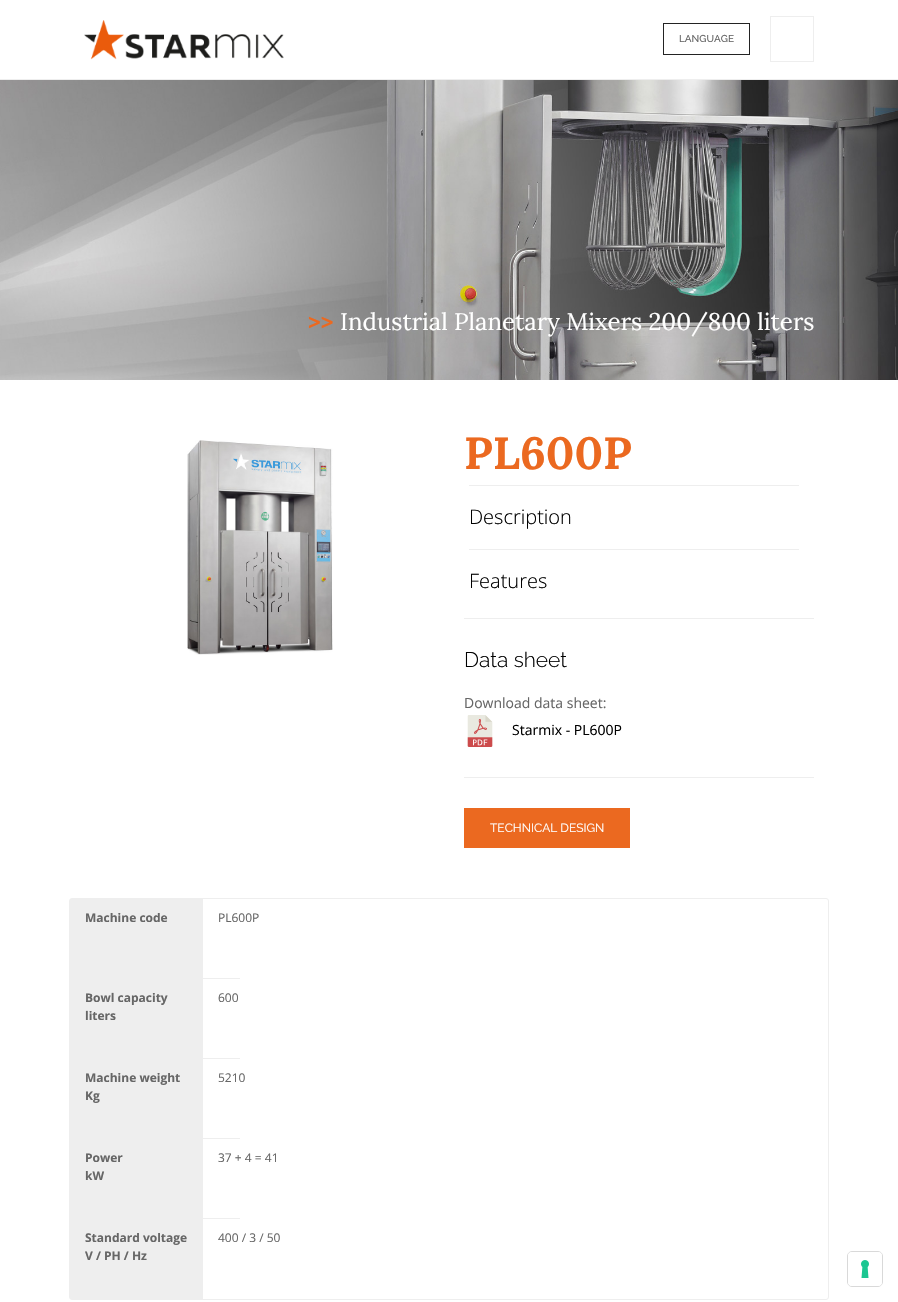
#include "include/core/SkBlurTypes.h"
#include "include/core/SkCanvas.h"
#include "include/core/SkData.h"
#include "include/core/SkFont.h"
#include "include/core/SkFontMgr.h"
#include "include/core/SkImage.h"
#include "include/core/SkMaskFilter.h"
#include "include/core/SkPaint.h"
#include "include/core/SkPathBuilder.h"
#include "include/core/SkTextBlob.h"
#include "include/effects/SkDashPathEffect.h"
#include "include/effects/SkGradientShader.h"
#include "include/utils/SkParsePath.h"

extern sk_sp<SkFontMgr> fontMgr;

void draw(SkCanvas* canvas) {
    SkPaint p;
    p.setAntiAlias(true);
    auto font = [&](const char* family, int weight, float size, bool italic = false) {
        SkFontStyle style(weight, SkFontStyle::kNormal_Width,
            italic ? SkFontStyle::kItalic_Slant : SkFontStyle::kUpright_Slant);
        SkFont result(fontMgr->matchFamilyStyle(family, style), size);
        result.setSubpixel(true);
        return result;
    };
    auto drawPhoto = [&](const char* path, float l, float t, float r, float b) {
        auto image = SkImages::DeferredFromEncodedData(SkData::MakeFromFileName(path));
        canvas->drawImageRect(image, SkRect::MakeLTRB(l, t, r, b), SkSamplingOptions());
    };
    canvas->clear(0xFFFFFFFF);
    p.setColor(0xFFEEEEEE);
    canvas->drawRect(SkRect::MakeLTRB(0, 79, 898, 80), p);
    drawPhoto("media/1.png", 84, 20, 284, 60);
    p.setStyle(SkPaint::kStroke_Style);
    p.setStrokeWidth(1);
    p.setColor(0xFF232323);
    canvas->drawRect(SkRect::MakeLTRB(663.5f, 23.5f, 749.5f, 54.5f), p);
    auto font1 = font("Raleway", 500, 10);
    p.setStyle(SkPaint::kFill_Style);
    p.setColor(0xFF666666);
    canvas->drawString("LANGUAGE", 679, 42, font1, p);
    p.setStyle(SkPaint::kStroke_Style);
    p.setColor(0xFFEEEEEE);
    canvas->drawRect(SkRect::MakeLTRB(770.5f, 16.5f, 813.5f, 61.5f), p);
    drawPhoto("media/2.png", 0, 80, 898, 380);
    auto font2 = font("Lora", 700, 24);
    p.setStyle(SkPaint::kFill_Style);
    p.setColor(0xFFEB6920);
    canvas->drawString(">>", 308, 330, font2, p);
    auto font3 = font("Lora", 400, 24);
    p.setColor(0xFFFFFFFF);
    canvas->drawString("Industrial Planetary Mixers 200/800 liters", 340, 330, font3, p);
    drawPhoto("media/3.png", 187, 440, 333, 655);
    auto font4 = font("Lora", 700, 45);
    p.setColor(0xFFEB6920);
    canvas->drawString("PL600P", 464, 469, font4, p);
    p.setColor(0xFFEEEEEE);
    canvas->drawRect(SkRect::MakeLTRB(469, 485, 799, 486), p);
    auto font5 = font("Open Sans", 300, 20);
    p.setColor(0xFF000000);
    canvas->drawString("Description", 469, 524, font5, p);
    p.setColor(0xFFEEEEEE);
    canvas->drawRect(SkRect::MakeLTRB(469, 549, 799, 550), p);
    p.setColor(0xFF000000);
    canvas->drawString("Features", 469, 588, font5, p);
    p.setColor(0xFFEEEEEE);
    canvas->drawRect(SkRect::MakeLTRB(464, 618, 814, 619), p);
    auto font6 = font("Raleway", 300, 21);
    p.setColor(0xFF000000);
    canvas->drawString("Data sheet", 464, 667, font6, p);
    auto font7 = font("Open Sans", 400, 14);
    p.setColor(0xFF666666);
    canvas->drawString("Download data sheet:", 464, 708, font7, p);
    drawPhoto("media/4.png", 467, 715, 493, 747);
    p.setColor(0xFF000000);
    canvas->drawString("Starmix - PL600P", 512, 735, font7, p);
    p.setColor(0xFFEEEEEE);
    canvas->drawRect(SkRect::MakeLTRB(464, 777, 814, 778), p);
    p.setColor(0xFFEB6920);
    canvas->drawRect(SkRect::MakeLTRB(464, 808, 630, 848), p);
    auto font8 = font("Raleway", 400, 12);
    p.setColor(0xFFFFFFFF);
    canvas->drawString("TECHNICAL DESIGN", 490, 832, font8, p);
    p.setStyle(SkPaint::kStroke_Style);
    p.setColor(0xFFEEEEEE);
    canvas->drawRoundRect(SkRect::MakeLTRB(69.5f, 898.5f, 828.5f, 1299.5f), 2.5f, 2.5f, p);
    p.setStyle(SkPaint::kFill_Style);
    canvas->drawRect(SkRect::MakeLTRB(70, 899, 202, 1299), p);
    auto font9 = font("Open Sans", 700, 12);
    p.setColor(0xFF666666);
    {
        const struct { const char* s; float x, y; } items[] = {
            {"Machine code", 85, 922},
            {"Bowl capacity", 85, 1002},
            {"liters", 85, 1020},
            {"Machine weight", 85, 1082},
            {"Kg", 85, 1100},
            {"Power", 85, 1162},
            {"kW", 85, 1180},
            {"Standard voltage", 85, 1242},
            {"V / PH / Hz", 85, 1260},
        };
        for (auto [s, x, y] : items) {
            canvas->drawString(s, x, y, font9, p);
        }
    }
    p.setColor(0xFFEEEEEE);
    canvas->drawRect(SkRect::MakeLTRB(202, 978, 240, 979), p);
    canvas->drawRect(SkRect::MakeLTRB(202, 899, 203, 979), p);
    auto font10 = font("Open Sans", 400, 12);
    p.setColor(0xFF666666);
    canvas->drawString("PL600P", 218, 922, font10, p);
    p.setColor(0xFFEEEEEE);
    canvas->drawRect(SkRect::MakeLTRB(202, 1058, 240, 1059), p);
    canvas->drawRect(SkRect::MakeLTRB(202, 979, 203, 1059), p);
    p.setColor(0xFF666666);
    canvas->drawString("600", 218, 1002, font10, p);
    p.setColor(0xFFEEEEEE);
    canvas->drawRect(SkRect::MakeLTRB(202, 1138, 240, 1139), p);
    canvas->drawRect(SkRect::MakeLTRB(202, 1059, 203, 1139), p);
    p.setColor(0xFF666666);
    canvas->drawString("5210", 218, 1082, font10, p);
    p.setColor(0xFFEEEEEE);
    canvas->drawRect(SkRect::MakeLTRB(202, 1218, 240, 1219), p);
    canvas->drawRect(SkRect::MakeLTRB(202, 1139, 203, 1299), p);
    p.setColor(0xFF666666);
    canvas->drawString("37 + 4 = 41", 218, 1162, font10, p);
    canvas->drawString("400 / 3 / 50", 218, 1242, font10, p);
    p.setStyle(SkPaint::kStroke_Style);
    p.setColor(0xFFD9D9D9);
    canvas->drawRoundRect(SkRect::MakeLTRB(847.5f, 1251.5f, 882.5f, 1286.5f), 4.5f, 4.5f, p);
    p.setStyle(SkPaint::kFill_Style);
    p.setColor(0xFFFFFFFF);
    canvas->drawRoundRect(SkRect::MakeLTRB(848, 1252, 882, 1286), 4, 4, p);
    drawPhoto("media/5.png", 861, 1260, 869, 1278);
}
